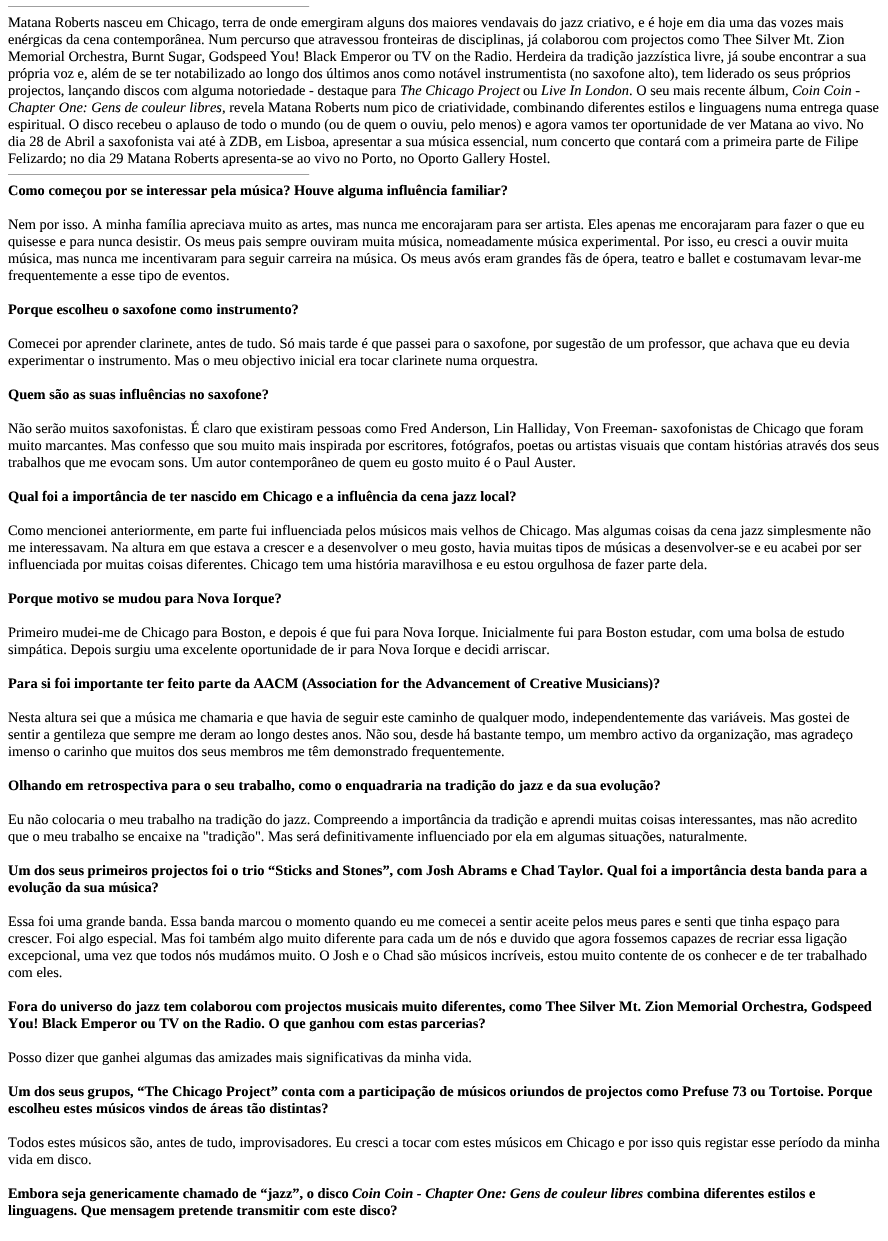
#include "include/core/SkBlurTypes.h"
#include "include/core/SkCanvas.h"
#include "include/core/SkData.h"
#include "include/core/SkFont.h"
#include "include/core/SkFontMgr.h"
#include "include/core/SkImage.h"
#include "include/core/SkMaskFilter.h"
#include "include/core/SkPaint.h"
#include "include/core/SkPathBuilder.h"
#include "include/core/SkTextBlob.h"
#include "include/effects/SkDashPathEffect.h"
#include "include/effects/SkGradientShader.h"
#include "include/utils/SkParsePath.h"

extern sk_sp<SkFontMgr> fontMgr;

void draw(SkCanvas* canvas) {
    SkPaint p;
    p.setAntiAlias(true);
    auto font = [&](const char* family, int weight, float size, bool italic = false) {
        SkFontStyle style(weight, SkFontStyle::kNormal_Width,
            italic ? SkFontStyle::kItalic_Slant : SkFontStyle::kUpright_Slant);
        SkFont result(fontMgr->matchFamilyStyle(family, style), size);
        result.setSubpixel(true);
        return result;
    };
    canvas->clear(0xFFFFFFFF);
    p.setColor(0xFF9F9F9F);
    canvas->drawRect(SkRect::MakeLTRB(8, 6, 310, 7), p);
    p.setColor(0xFFEEEEEE);
    canvas->drawRect(SkRect::MakeLTRB(309, 6, 310, 7), p);
    auto font1 = font("Liberation Serif", 400, 14.4f);
    p.setColor(0xFF000000);
    {
        const struct { const char* s; float x, y; } items[] = {
            {"Matana Roberts nasceu em Chicago, terra de onde emergiram alguns dos maiores vendavais do jazz criativo, e é hoje em dia uma das vozes mais", 8, 27},
            {"enérgicas da cena contemporânea. Num percurso que atravessou fronteiras de disciplinas, já colaborou com projectos como Thee Silver Mt. Zion", 8, 44},
            {"Memorial Orchestra, Burnt Sugar, Godspeed You! Black Emperor ou TV on the Radio. Herdeira da tradição jazzística livre, já soube encontrar a sua", 8, 61},
            {"própria voz e, além de se ter notabilizado ao longo dos últimos anos como notável instrumentista (no saxofone alto), tem liderado os seus próprios", 8, 78},
            {"projectos, lançando discos com alguma notoriedade - destaque para", 8, 95},
        };
        for (auto [s, x, y] : items) {
            canvas->drawString(s, x, y, font1, p);
        }
    }
    auto font2 = font("Liberation Serif", 400, 14.4f, true);
    canvas->drawString("The Chicago Project", 400, 95, font2, p);
    canvas->drawString("ou", 523, 95, font1, p);
    canvas->drawString("Live In London", 541, 95, font2, p);
    canvas->drawString(". O seu mais recente álbum,", 629, 95, font1, p);
    canvas->drawString("Coin Coin -", 792, 95, font2, p);
    canvas->drawString("Chapter One: Gens de couleur libres", 8, 112, font2, p);
    {
        const struct { const char* s; float x, y; } items[] = {
            {", revela Matana Roberts num pico de criatividade, combinando diferentes estilos e linguagens numa entrega quase", 222, 112},
            {"espiritual. O disco recebeu o aplauso de todo o mundo (ou de quem o ouviu, pelo menos) e agora vamos ter oportunidade de ver Matana ao vivo. No", 8, 129},
            {"dia 28 de Abril a saxofonista vai até à ZDB, em Lisboa, apresentar a sua música essencial, num concerto que contará com a primeira parte de Filipe", 8, 146},
            {"Felizardo; no dia 29 Matana Roberts apresenta-se ao vivo no Porto, no Oporto Gallery Hostel.", 8, 163},
        };
        for (auto [s, x, y] : items) {
            canvas->drawString(s, x, y, font1, p);
        }
    }
    p.setColor(0xFF9F9F9F);
    canvas->drawRect(SkRect::MakeLTRB(8, 174, 310, 175), p);
    p.setColor(0xFFEEEEEE);
    canvas->drawRect(SkRect::MakeLTRB(309, 174, 310, 175), p);
    auto font3 = font("Liberation Serif", 700, 14.4f);
    p.setColor(0xFF000000);
    canvas->drawString("Como começou por se interessar pela música? Houve alguma influência familiar?", 8, 195, font3, p);
    {
        const struct { const char* s; float x, y; } items[] = {
            {"Nem por isso. A minha família apreciava muito as artes, mas nunca me encorajaram para ser artista. Eles apenas me encorajaram para fazer o que eu", 8, 229},
            {"quisesse e para nunca desistir. Os meus pais sempre ouviram muita música, nomeadamente música experimental. Por isso, eu cresci a ouvir muita", 8, 246},
            {"música, mas nunca me incentivaram para seguir carreira na música. Os meus avós eram grandes fãs de ópera, teatro e ballet e costumavam levar-me", 8, 263},
            {"frequentemente a esse tipo de eventos.", 8, 280},
        };
        for (auto [s, x, y] : items) {
            canvas->drawString(s, x, y, font1, p);
        }
    }
    canvas->drawString("Porque escolheu o saxofone como instrumento?", 8, 314, font3, p);
    canvas->drawString("Comecei por aprender clarinete, antes de tudo. Só mais tarde é que passei para o saxofone, por sugestão de um professor, que achava que eu devia", 8, 348, font1, p);
    canvas->drawString("experimentar o instrumento. Mas o meu objectivo inicial era tocar clarinete numa orquestra.", 8, 365, font1, p);
    canvas->drawString("Quem são as suas influências no saxofone?", 8, 399, font3, p);
    {
        const struct { const char* s; float x, y; } items[] = {
            {"Não serão muitos saxofonistas. É claro que existiram pessoas como Fred Anderson, Lin Halliday, Von Freeman- saxofonistas de Chicago que foram", 8, 433},
            {"muito marcantes. Mas confesso que sou muito mais inspirada por escritores, fotógrafos, poetas ou artistas visuais que contam histórias através dos seus", 8, 450},
            {"trabalhos que me evocam sons. Um autor contemporâneo de quem eu gosto muito é o Paul Auster.", 8, 467},
        };
        for (auto [s, x, y] : items) {
            canvas->drawString(s, x, y, font1, p);
        }
    }
    canvas->drawString("Qual foi a importância de ter nascido em Chicago e a influência da cena jazz local?", 8, 501, font3, p);
    {
        const struct { const char* s; float x, y; } items[] = {
            {"Como mencionei anteriormente, em parte fui influenciada pelos músicos mais velhos de Chicago. Mas algumas coisas da cena jazz simplesmente não", 8, 535},
            {"me interessavam. Na altura em que estava a crescer e a desenvolver o meu gosto, havia muitas tipos de músicas a desenvolver-se e eu acabei por ser", 8, 552},
            {"influenciada por muitas coisas diferentes. Chicago tem uma história maravilhosa e eu estou orgulhosa de fazer parte dela.", 8, 569},
        };
        for (auto [s, x, y] : items) {
            canvas->drawString(s, x, y, font1, p);
        }
    }
    canvas->drawString("Porque motivo se mudou para Nova Iorque?", 8, 603, font3, p);
    canvas->drawString("Primeiro mudei-me de Chicago para Boston, e depois é que fui para Nova Iorque. Inicialmente fui para Boston estudar, com uma bolsa de estudo", 8, 637, font1, p);
    canvas->drawString("simpática. Depois surgiu uma excelente oportunidade de ir para Nova Iorque e decidi arriscar.", 8, 654, font1, p);
    canvas->drawString("Para si foi importante ter feito parte da AACM (Association for the Advancement of Creative Musicians)?", 8, 688, font3, p);
    {
        const struct { const char* s; float x, y; } items[] = {
            {"Nesta altura sei que a música me chamaria e que havia de seguir este caminho de qualquer modo, independentemente das variáveis. Mas gostei de", 8, 722},
            {"sentir a gentileza que sempre me deram ao longo destes anos. Não sou, desde há bastante tempo, um membro activo da organização, mas agradeço", 8, 739},
            {"imenso o carinho que muitos dos seus membros me têm demonstrado frequentemente.", 8, 756},
        };
        for (auto [s, x, y] : items) {
            canvas->drawString(s, x, y, font1, p);
        }
    }
    canvas->drawString("Olhando em retrospectiva para o seu trabalho, como o enquadraria na tradição do jazz e da sua evolução?", 8, 790, font3, p);
    canvas->drawString("Eu não colocaria o meu trabalho na tradição do jazz. Compreendo a importância da tradição e aprendi muitas coisas interessantes, mas não acredito", 8, 824, font1, p);
    canvas->drawString("que o meu trabalho se encaixe na \"tradição\". Mas será definitivamente influenciado por ela em algumas situações, naturalmente.", 8, 841, font1, p);
    canvas->drawString("Um dos seus primeiros projectos foi o trio “Sticks and Stones”, com Josh Abrams e Chad Taylor. Qual foi a importância desta banda para a", 8, 875, font3, p);
    canvas->drawString("evolução da sua música?", 8, 892, font3, p);
    {
        const struct { const char* s; float x, y; } items[] = {
            {"Essa foi uma grande banda. Essa banda marcou o momento quando eu me comecei a sentir aceite pelos meus pares e senti que tinha espaço para", 8, 926},
            {"crescer. Foi algo especial. Mas foi também algo muito diferente para cada um de nós e duvido que agora fossemos capazes de recriar essa ligação", 8, 943},
            {"excepcional, uma vez que todos nós mudámos muito. O Josh e o Chad são músicos incríveis, estou muito contente de os conhecer e de ter trabalhado", 8, 960},
            {"com eles.", 8, 977},
        };
        for (auto [s, x, y] : items) {
            canvas->drawString(s, x, y, font1, p);
        }
    }
    canvas->drawString("Fora do universo do jazz tem colaborou com projectos musicais muito diferentes, como Thee Silver Mt. Zion Memorial Orchestra, Godspeed", 8, 1011, font3, p);
    canvas->drawString("You! Black Emperor ou TV on the Radio. O que ganhou com estas parcerias?", 8, 1028, font3, p);
    canvas->drawString("Posso dizer que ganhei algumas das amizades mais significativas da minha vida.", 8, 1062, font1, p);
    canvas->drawString("Um dos seus grupos, “The Chicago Project” conta com a participação de músicos oriundos de projectos como Prefuse 73 ou Tortoise. Porque", 8, 1096, font3, p);
    canvas->drawString("escolheu estes músicos vindos de áreas tão distintas?", 8, 1113, font3, p);
    canvas->drawString("Todos estes músicos são, antes de tudo, improvisadores. Eu cresci a tocar com estes músicos em Chicago e por isso quis registar esse período da minha", 8, 1147, font1, p);
    canvas->drawString("vida em disco.", 8, 1164, font1, p);
    canvas->drawString("Embora seja genericamente chamado de “jazz”, o disco", 8, 1198, font3, p);
    auto font4 = font("Liberation Serif", 700, 14.4f, true);
    canvas->drawString("Coin Coin - Chapter One: Gens de couleur libres", 352, 1198, font4, p);
    canvas->drawString("combina diferentes estilos e", 647, 1198, font3, p);
    canvas->drawString("linguagens. Que mensagem pretende transmitir com este disco?", 8, 1215, font3, p);
}
